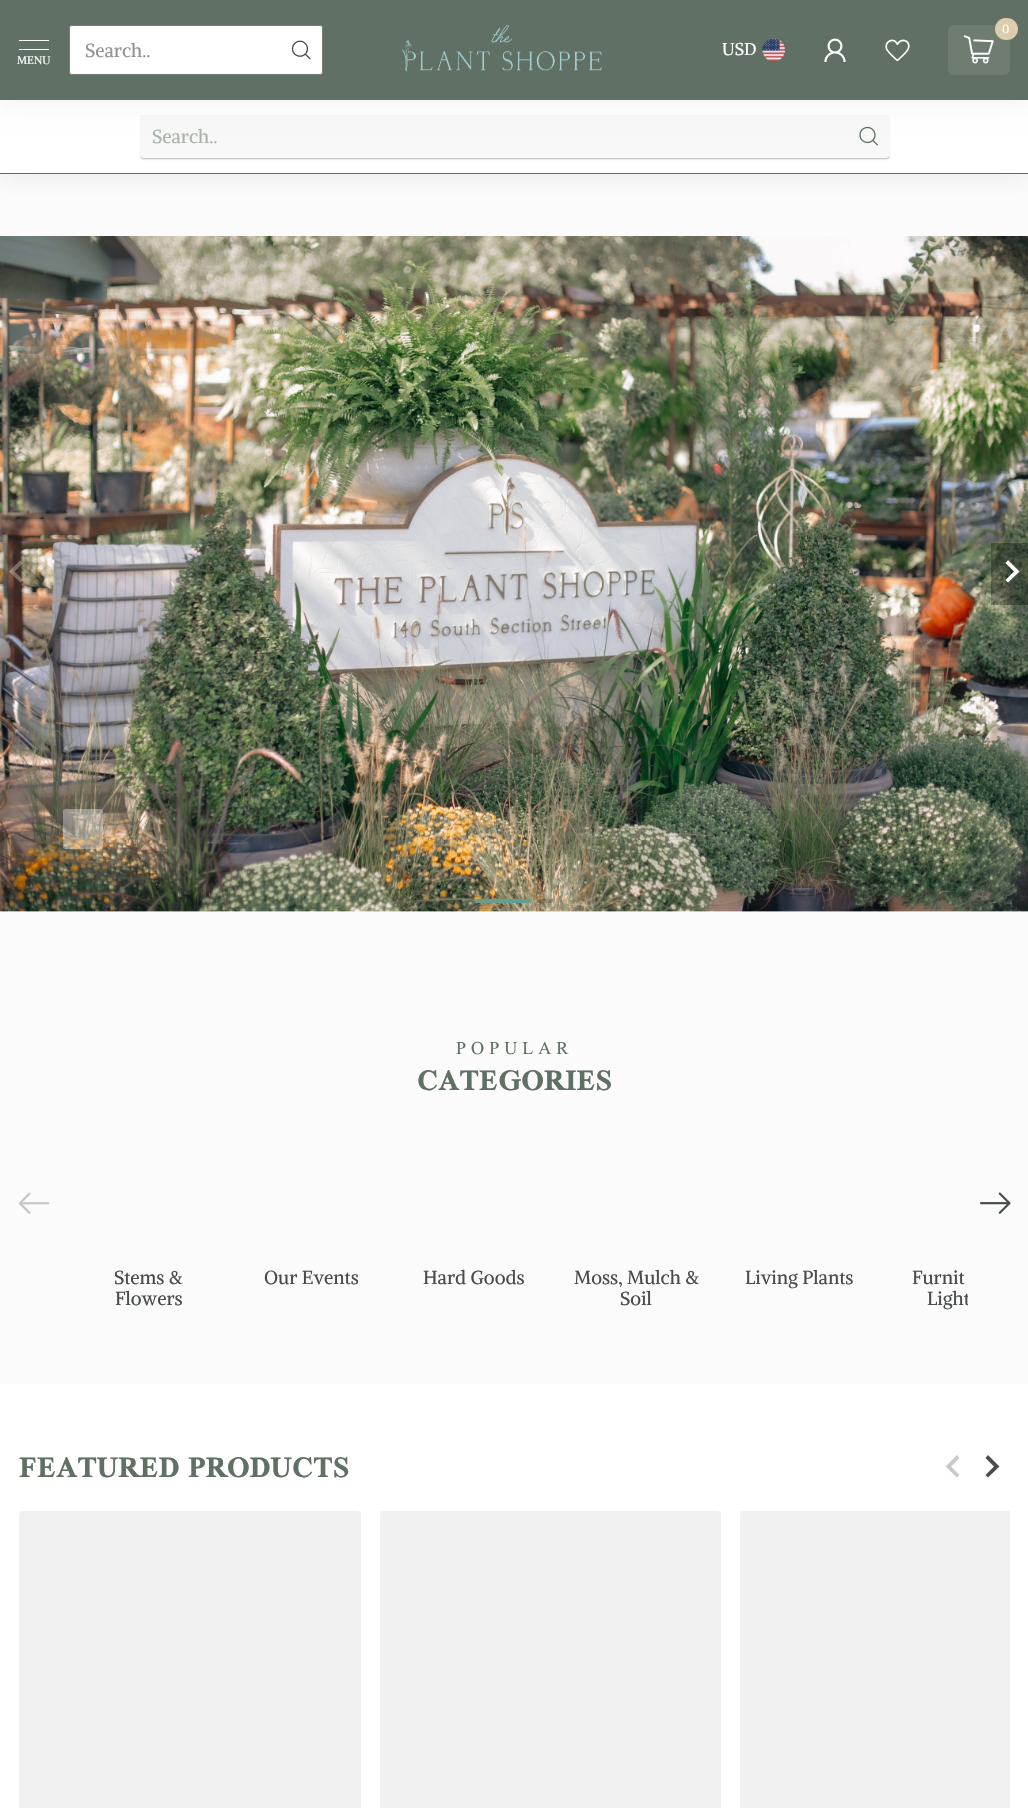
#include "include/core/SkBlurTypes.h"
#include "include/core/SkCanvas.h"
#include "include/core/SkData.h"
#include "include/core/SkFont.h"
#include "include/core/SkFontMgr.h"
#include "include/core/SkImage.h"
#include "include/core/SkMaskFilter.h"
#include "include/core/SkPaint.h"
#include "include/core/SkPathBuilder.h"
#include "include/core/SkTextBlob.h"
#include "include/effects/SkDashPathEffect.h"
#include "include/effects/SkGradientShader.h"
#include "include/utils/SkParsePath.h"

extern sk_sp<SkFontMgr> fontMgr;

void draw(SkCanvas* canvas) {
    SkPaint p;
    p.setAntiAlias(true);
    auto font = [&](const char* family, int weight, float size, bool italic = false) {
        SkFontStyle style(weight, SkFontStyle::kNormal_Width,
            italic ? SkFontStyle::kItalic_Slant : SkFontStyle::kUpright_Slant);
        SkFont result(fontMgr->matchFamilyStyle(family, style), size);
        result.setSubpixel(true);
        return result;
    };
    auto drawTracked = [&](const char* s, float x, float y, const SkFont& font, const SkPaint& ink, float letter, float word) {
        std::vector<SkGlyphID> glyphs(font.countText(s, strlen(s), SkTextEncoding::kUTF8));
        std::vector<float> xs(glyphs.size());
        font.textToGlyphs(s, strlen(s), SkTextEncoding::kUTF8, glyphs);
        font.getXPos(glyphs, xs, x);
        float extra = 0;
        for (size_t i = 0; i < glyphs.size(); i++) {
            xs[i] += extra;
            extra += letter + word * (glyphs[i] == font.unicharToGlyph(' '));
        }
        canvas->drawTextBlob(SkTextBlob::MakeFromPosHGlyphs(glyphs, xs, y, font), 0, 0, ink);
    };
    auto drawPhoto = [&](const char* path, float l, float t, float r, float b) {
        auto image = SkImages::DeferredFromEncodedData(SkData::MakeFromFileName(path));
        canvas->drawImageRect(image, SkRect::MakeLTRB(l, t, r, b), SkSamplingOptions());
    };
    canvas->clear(0xFFFFFFFF);
    p.setColor(0xFFFBFBFB);
    canvas->drawRect(SkRect::MakeLTRB(0, 174, 1028, 1384), p);
    p.setColor(0x14000000);
    p.setMaskFilter(SkMaskFilter::MakeBlur(kNormal_SkBlurStyle, 14));
    canvas->drawRect(SkRect::MakeLTRB(0, 100, 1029, 174), p);
    p.setMaskFilter(nullptr);
    p.setColor(0xFFFFFFFF);
    canvas->drawRect(SkRect::MakeLTRB(0, 100, 1028, 173), p);
    canvas->save();
    canvas->clipPath(SkPathBuilder(SkPathFillType::kEvenOdd).moveTo(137, 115).lineTo(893, 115).lineTo(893, 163).lineTo(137, 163).close().moveTo(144, 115).lineTo(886, 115).cubicTo(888, 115, 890, 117, 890, 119).lineTo(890, 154).cubicTo(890, 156, 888, 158, 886, 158).lineTo(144, 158).cubicTo(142, 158, 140, 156, 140, 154).lineTo(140, 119).cubicTo(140, 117, 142, 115, 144, 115).close().detach(), true);
    p.setColor(0xBF9B9B9B);
    p.setMaskFilter(SkMaskFilter::MakeBlur(kNormal_SkBlurStyle, 1));
    canvas->drawRoundRect(SkRect::MakeLTRB(141, 119, 889, 159), 2.5f, 2.5f, p);
    p.setMaskFilter(nullptr);
    canvas->restore();
    p.setColor(0x0D617064);
    canvas->drawRect(SkRect::MakeLTRB(140, 115, 890, 158), p);
    drawPhoto("media/7.png", 859, 126, 878, 146);
    p.setColor(0x12000000);
    p.setMaskFilter(SkMaskFilter::MakeBlur(kNormal_SkBlurStyle, 12.5f));
    canvas->drawRect(SkRect::MakeLTRB(0, 0, 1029, 100), p);
    p.setMaskFilter(nullptr);
    p.setColor(0xFF617064);
    canvas->drawRect(SkRect::MakeLTRB(0, 0, 1028, 100), p);
    p.setColor(0xFFFFFFFF);
    canvas->drawRoundRect(SkRect::MakeLTRB(69.5f, 25.5f, 322.5f, 74.5f), 2, 2, p);
    p.setStyle(SkPaint::kStroke_Style);
    p.setStrokeWidth(1);
    p.setColor(0xFF707E73);
    canvas->drawRoundRect(SkRect::MakeLTRB(69.5f, 25.5f, 322.5f, 74.5f), 2, 2, p);
    auto font1 = font("Alike", 400, 18.75f);
    p.setStyle(SkPaint::kFill_Style);
    p.setColor(0xFF919492);
    canvas->drawString("Search..", 85, 57, font1, p);
    drawPhoto("media/1.png", 291, 40, 311, 60);
    p.setColor(0xFFFFFFFF);
    canvas->drawRect(SkRect::MakeLTRB(19, 40, 49, 41), p);
    canvas->drawRect(SkRect::MakeLTRB(19, 49, 49, 50), p);
    auto font2 = font("Alike", 400, 11);
    canvas->drawString("MENU", 17, 64, font2, p);
    drawPhoto("media/2.png", 402, 24, 602, 72);
    p.setColor(0xFF6E7C71);
    canvas->drawRoundRect(SkRect::MakeLTRB(948, 25, 1010, 75), 6, 6, p);
    p.setColor(0xFFDDCCAE);
    canvas->drawRoundRect(SkRect::MakeLTRB(995, 18, 1018, 40), 11, 11, p);
    auto font3 = font("Alike", 400, 12);
    p.setColor(0xFFFFFFFF);
    canvas->drawString("0", 1002, 33, font3, p);
    drawPhoto("media/3.png", 963, 35, 994, 64);
    auto font4 = font("Alike", 400, 17);
    canvas->drawString("USD", 722, 55, font4, p);
    drawPhoto("media/4.png", 762, 38, 785, 62);
    drawPhoto("media/5.png", 824, 38, 846, 62);
    drawPhoto("media/6.png", 885, 39, 910, 62);
    p.setColor(0xFF617064);
    canvas->drawRect(SkRect::MakeLTRB(0, 173, 1028, 174), p);
    canvas->save();
    canvas->clipRect(SkRect::MakeLTRB(153, 125, 835, 149));
    p.setColor(0xFFABB3AC);
    canvas->drawString("Search..", 152, 143, font1, p);
    canvas->restore();
    drawPhoto("media/8.png", 0, 236, 1028, 912);
    p.setColor(0x59FFFFFF);
    canvas->drawRoundRect(SkRect::MakeLTRB(63, 809, 103, 849), 2.5f, 2.5f, p);
    p.setColor(0x17000000);
    canvas->drawRect(SkRect::MakeLTRB(0, 543, 38, 605), p);
    p.setColor(0x4DFFFFFF);
    canvas->drawPath(SkPathBuilder().moveTo(20.5f, 560).lineTo(23.5f, 563).lineTo(14.5f, 571.5f).lineTo(23.5f, 580).lineTo(20.5f, 582.5f).lineTo(9, 571.5f).close().detach(), p);
    p.setColor(0x4D000000);
    canvas->drawRect(SkRect::MakeLTRB(991, 543, 1028, 605), p);
    p.setColor(0xFFFFFFFF);
    canvas->drawPath(SkPathBuilder().moveTo(1008, 582.5f).lineTo(1005.5f, 580).lineTo(1014, 571.5f).lineTo(1005.5f, 563).lineTo(1008, 560).lineTo(1019.5f, 571.5f).close().detach(), p);
    p.setColor(0xFF669F91);
    canvas->drawRoundRect(SkRect::MakeLTRB(475, 899, 531, 903), 2, 2, p);
    p.setColor(0x4D484C4A);
    canvas->drawRoundRect(SkRect::MakeLTRB(536, 899, 554, 903), 2, 2, p);
    auto font5 = font("Scheherazade New", 400, 20);
    p.setColor(0xFF617064);
    drawTracked("POPULAR", 456, 1054, font5, p, 5, 0);
    auto font6 = font("Scheherazade New", 700, 32.5f);
    canvas->drawString("CATEGORIES", 417, 1090, font6, p);
    drawPhoto("media/9.png", 18, 1192, 50, 1214);
    drawPhoto("media/10.png", 980, 1192, 1011, 1214);
    p.setColor(0xFF484C4A);
    {
        const struct { const char* s; float x, y; } items[] = {
            {"Stems &", 114, 1284},
            {"Flowers", 115, 1305},
            {"Our Events", 264, 1284},
            {"Hard Goods", 423, 1284},
            {"Moss, Mulch &", 574, 1284},
            {"Soil", 620, 1305},
            {"Living Plants", 745, 1284},
            {"Furnit", 912, 1284},
        };
        for (auto [s, x, y] : items) {
            canvas->drawString(s, x, y, font1, p);
        }
    }
    canvas->save();
    canvas->clipRect(SkRect::MakeLTRB(61, 1118, 968, 1321));
    canvas->drawString("Light", 927, 1305, font1, p);
    canvas->restore();
    p.setColor(0xFF617064);
    canvas->drawString("FEATURED PRODUCTS", 19, 1477, font6, p);
    p.setColor(0xFFC8C9C9);
    canvas->drawPath(SkPathBuilder().moveTo(957, 1455).lineTo(959.5f, 1458).lineTo(951, 1466.5f).lineTo(959.5f, 1475).lineTo(957, 1477.5f).lineTo(945.5f, 1466.5f).close().detach(), p);
    p.setColor(0xFF484C4A);
    canvas->drawPath(SkPathBuilder().moveTo(988, 1477.5f).lineTo(985.5f, 1475).lineTo(994, 1466.5f).lineTo(985.5f, 1458).lineTo(988, 1455).lineTo(999.5f, 1466.5f).close().detach(), p);
    p.setColor(0xFFF6F6F6);
    canvas->drawPath(SkPathBuilder().moveTo(24, 1511).lineTo(356, 1511).cubicTo(359, 1511, 361, 1513, 361, 1516).lineTo(361, 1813).lineTo(19, 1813).lineTo(19, 1516).cubicTo(19, 1513, 21, 1511, 24, 1511).close().detach(), p);
    p.setColor(0x0F9B9B9B);
    canvas->drawRect(SkRect::MakeLTRB(19, 1511, 361, 1808), p);
    p.setColor(0xFFF6F6F6);
    canvas->drawPath(SkPathBuilder().moveTo(385, 1511).lineTo(716, 1511).cubicTo(719, 1511, 721, 1513, 721, 1516).lineTo(721, 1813).lineTo(380, 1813).lineTo(380, 1516).cubicTo(380, 1513, 382, 1511, 385, 1511).close().detach(), p);
    p.setColor(0x0F9B9B9B);
    canvas->drawRect(SkRect::MakeLTRB(380, 1511, 721, 1808), p);
    p.setColor(0xFFF6F6F6);
    canvas->drawPath(SkPathBuilder().moveTo(745, 1511).lineTo(1010, 1511).lineTo(1010, 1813).lineTo(740, 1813).lineTo(740, 1516).cubicTo(740, 1513, 742, 1511, 745, 1511).close().detach(), p);
    p.setColor(0x0F9B9B9B);
    canvas->drawRect(SkRect::MakeLTRB(740, 1511, 1010, 1808), p);
}
